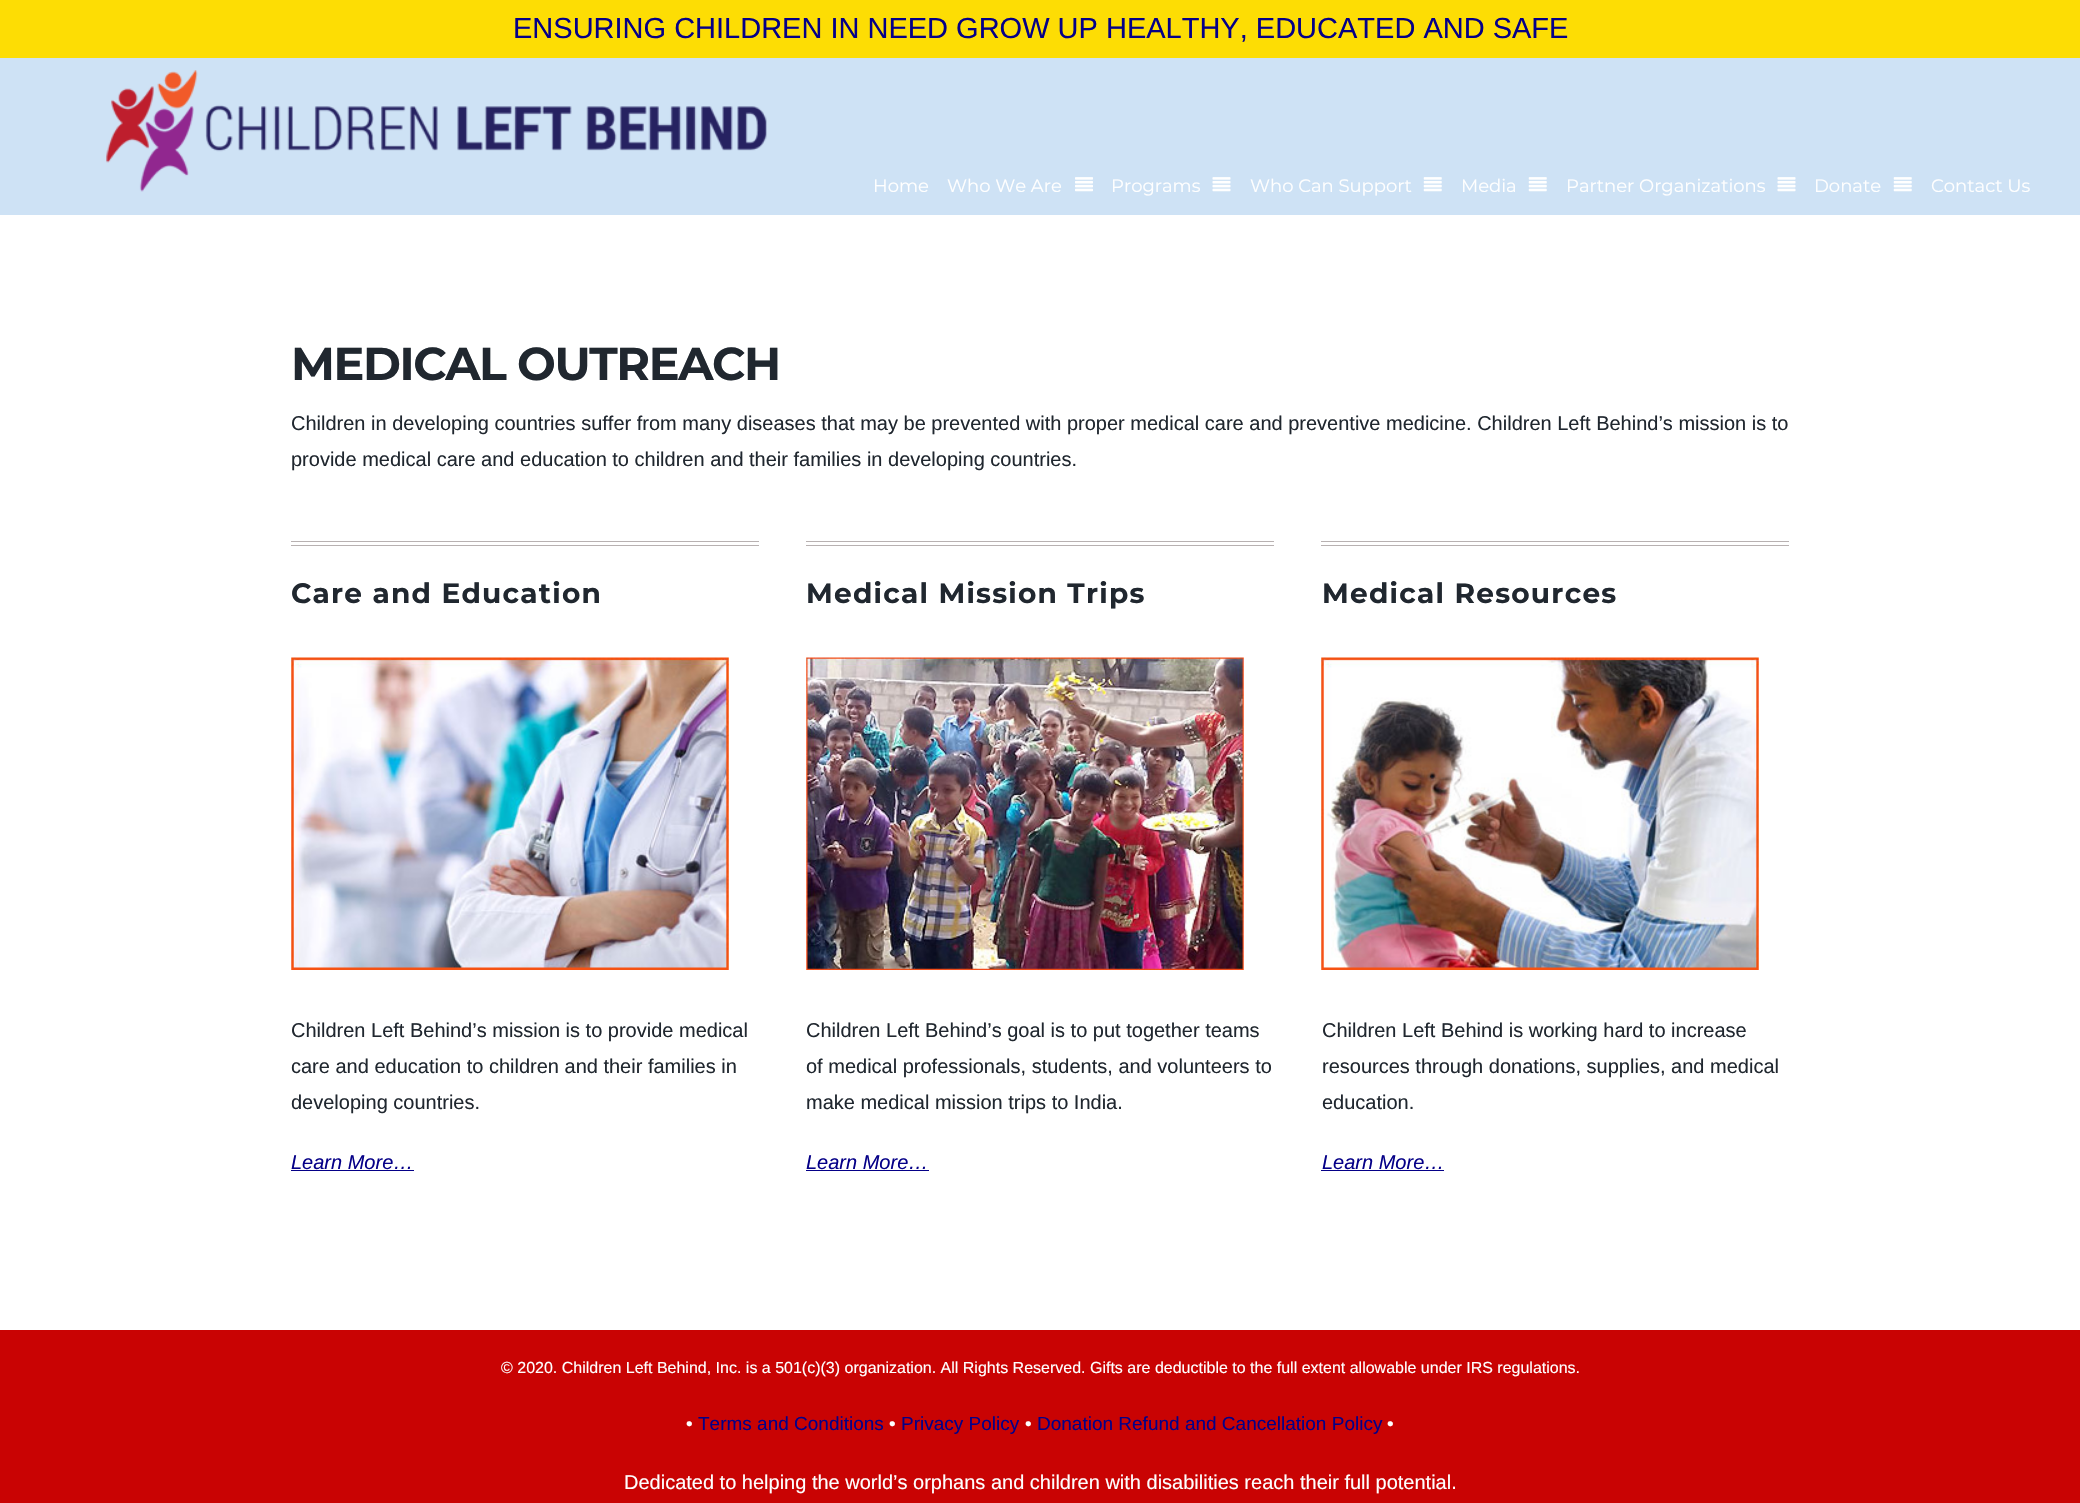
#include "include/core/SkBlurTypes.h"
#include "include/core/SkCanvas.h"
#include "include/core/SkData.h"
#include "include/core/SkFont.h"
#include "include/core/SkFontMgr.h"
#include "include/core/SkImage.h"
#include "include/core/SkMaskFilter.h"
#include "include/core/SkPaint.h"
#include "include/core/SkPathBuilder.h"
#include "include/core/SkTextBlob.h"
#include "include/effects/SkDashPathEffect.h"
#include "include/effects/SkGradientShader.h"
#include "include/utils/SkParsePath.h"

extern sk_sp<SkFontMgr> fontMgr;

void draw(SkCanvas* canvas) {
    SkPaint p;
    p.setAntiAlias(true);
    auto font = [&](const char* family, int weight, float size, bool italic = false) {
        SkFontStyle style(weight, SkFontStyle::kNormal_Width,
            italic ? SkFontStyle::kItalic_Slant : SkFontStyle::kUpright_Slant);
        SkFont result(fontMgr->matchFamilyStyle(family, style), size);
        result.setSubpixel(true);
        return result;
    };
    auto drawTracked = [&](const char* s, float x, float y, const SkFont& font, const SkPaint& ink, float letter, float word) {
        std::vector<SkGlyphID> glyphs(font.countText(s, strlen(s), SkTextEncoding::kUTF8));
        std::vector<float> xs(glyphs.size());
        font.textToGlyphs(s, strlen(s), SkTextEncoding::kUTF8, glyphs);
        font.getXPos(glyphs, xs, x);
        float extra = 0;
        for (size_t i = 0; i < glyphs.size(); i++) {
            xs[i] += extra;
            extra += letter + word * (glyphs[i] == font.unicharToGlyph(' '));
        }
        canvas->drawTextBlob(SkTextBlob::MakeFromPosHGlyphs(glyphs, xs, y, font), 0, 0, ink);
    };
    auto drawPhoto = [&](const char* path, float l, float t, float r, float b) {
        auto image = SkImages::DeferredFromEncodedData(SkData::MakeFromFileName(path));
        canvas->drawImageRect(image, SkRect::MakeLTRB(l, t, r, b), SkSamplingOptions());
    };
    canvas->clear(0xFFFFFFFF);
    p.setColor(0xFFCEE2F5);
    canvas->drawRect(SkRect::MakeLTRB(0, 58, 2080, 215), p);
    p.setColor(0xFFFDDD04);
    canvas->drawRect(SkRect::MakeLTRB(0, 0, 2080, 58), p);
    auto font1 = font("Liberation Sans", 400, 29);
    p.setColor(0xFF050087);
    canvas->drawString("ENSURING CHILDREN IN NEED GROW UP HEALTHY, EDUCATED AND SAFE", 513, 38, font1, p);
    drawPhoto("media/1.png", 106, 70, 767, 192);
    auto font2 = font("Montserrat", 400, 18);
    p.setColor(0xFFFFFFFF);
    canvas->drawString("Home", 873, 192, font2, p);
    canvas->drawString("Who We Are", 947, 192, font2, p);
    drawPhoto("media/2.png", 1075, 177, 1093, 192);
    canvas->drawString("Programs", 1111, 192, font2, p);
    drawPhoto("media/3.png", 1212, 177, 1231, 192);
    canvas->drawString("Who Can Support", 1250, 192, font2, p);
    drawPhoto("media/4.png", 1423, 177, 1442, 192);
    canvas->drawString("Media", 1461, 192, font2, p);
    drawPhoto("media/4.png", 1528, 177, 1547, 192);
    canvas->drawString("Partner Organizations", 1566, 192, font2, p);
    drawPhoto("media/3.png", 1777, 177, 1796, 192);
    canvas->drawString("Donate", 1814, 192, font2, p);
    drawPhoto("media/4.png", 1893, 177, 1912, 192);
    canvas->drawString("Contact Us", 1931, 192, font2, p);
    auto font3 = font("Montserrat", 700, 46);
    p.setColor(0xFF20272F);
    drawTracked("MEDICAL OUTREACH", 291, 380, font3, p, -1.4f, 0);
    auto font4 = font("Liberation Sans", 400, 20);
    canvas->drawString("Children in developing countries suffer from many diseases that may be prevented with proper medical care and preventive medicine. Children Left Behind’s mission is to", 291, 430, font4, p);
    canvas->drawString("provide medical care and education to children and their families in developing countries.", 291, 466, font4, p);
    p.setColor(0xFFB8B1B1);
    canvas->drawRect(SkRect::MakeLTRB(291, 541, 759, 542), p);
    canvas->drawRect(SkRect::MakeLTRB(291, 545, 759, 546), p);
    auto font5 = font("Montserrat", 700, 28);
    p.setColor(0xFF20272F);
    drawTracked("Care and Education", 291, 603, font5, p, 1.25f, 0);
    drawPhoto("media/5.png", 291, 657, 729, 970);
    {
        const struct { const char* s; float x, y; } items[] = {
            {"Children Left Behind’s mission is to provide medical", 291, 1037},
            {"care and education to children and their families in", 291, 1073},
            {"developing countries.", 291, 1109},
        };
        for (auto [s, x, y] : items) {
            canvas->drawString(s, x, y, font4, p);
        }
    }
    auto font6 = font("Liberation Sans", 400, 20, true);
    p.setColor(0xFF050087);
    canvas->drawString("Learn More…", 291, 1169, font6, p);
    {
        const struct { float l, t, r, b; SkColor color; } items[] = {
            {291, 1170, 414, 1171, 0xFF050087},
            {806, 541, 1274, 542, 0xFFB8B1B1},
            {806, 545, 1274, 546, 0xFFB8B1B1},
        };
        for (auto [l, t, r, b, color] : items) {
            p.setColor(color);
            canvas->drawRect(SkRect::MakeLTRB(l, t, r, b), p);
        }
    }
    p.setColor(0xFF20272F);
    drawTracked("Medical Mission Trips", 806, 603, font5, p, 1.25f, 0);
    drawPhoto("media/6.png", 806, 657, 1244, 970);
    {
        const struct { const char* s; float x, y; } items[] = {
            {"Children Left Behind’s goal is to put together teams", 806, 1037},
            {"of medical professionals, students, and volunteers to", 806, 1073},
            {"make medical mission trips to India.", 806, 1109},
        };
        for (auto [s, x, y] : items) {
            canvas->drawString(s, x, y, font4, p);
        }
    }
    p.setColor(0xFF050087);
    canvas->drawString("Learn More…", 806, 1169, font6, p);
    {
        const struct { float l, t, r, b; SkColor color; } items[] = {
            {806, 1170, 929, 1171, 0xFF050087},
            {1321, 541, 1789, 542, 0xFFB8B1B1},
            {1321, 545, 1789, 546, 0xFFB8B1B1},
        };
        for (auto [l, t, r, b, color] : items) {
            p.setColor(color);
            canvas->drawRect(SkRect::MakeLTRB(l, t, r, b), p);
        }
    }
    p.setColor(0xFF20272F);
    drawTracked("Medical Resources", 1322, 603, font5, p, 1.25f, 0);
    drawPhoto("media/7.png", 1321, 657, 1759, 970);
    {
        const struct { const char* s; float x, y; } items[] = {
            {"Children Left Behind is working hard to increase", 1322, 1037},
            {"resources through donations, supplies, and medical", 1322, 1073},
            {"education.", 1322, 1109},
        };
        for (auto [s, x, y] : items) {
            canvas->drawString(s, x, y, font4, p);
        }
    }
    p.setColor(0xFF050087);
    canvas->drawString("Learn More…", 1322, 1169, font6, p);
    canvas->drawRect(SkRect::MakeLTRB(1321, 1170, 1444, 1171), p);
    p.setColor(0xFFC90303);
    canvas->drawRect(SkRect::MakeLTRB(0, 1330, 2080, 1503), p);
    auto font7 = font("Liberation Sans", 400, 16);
    p.setColor(0xFFFFFFFF);
    canvas->drawString("© 2020. Children Left Behind, Inc. is a 501(c)(3) organization. All Rights Reserved. Gifts are deductible to the full extent allowable under IRS regulations.", 501, 1373, font7, p);
    auto font8 = font("Liberation Sans", 400, 19);
    canvas->drawString("•", 686, 1430, font8, p);
    p.setColor(0xFF050087);
    canvas->drawString("Terms and Conditions", 698, 1430, font8, p);
    p.setColor(0xFFFFFFFF);
    canvas->drawString("•", 889, 1430, font8, p);
    p.setColor(0xFF050087);
    canvas->drawString("Privacy Policy", 901, 1430, font8, p);
    p.setColor(0xFFFFFFFF);
    canvas->drawString("•", 1025, 1430, font8, p);
    p.setColor(0xFF050087);
    canvas->drawString("Donation Refund and Cancellation Policy", 1037, 1430, font8, p);
    p.setColor(0xFFFFFFFF);
    canvas->drawString("•", 1387, 1430, font8, p);
    canvas->drawString("Dedicated to helping the world’s orphans and children with disabilities reach their full potential.", 624, 1489, font4, p);
}
